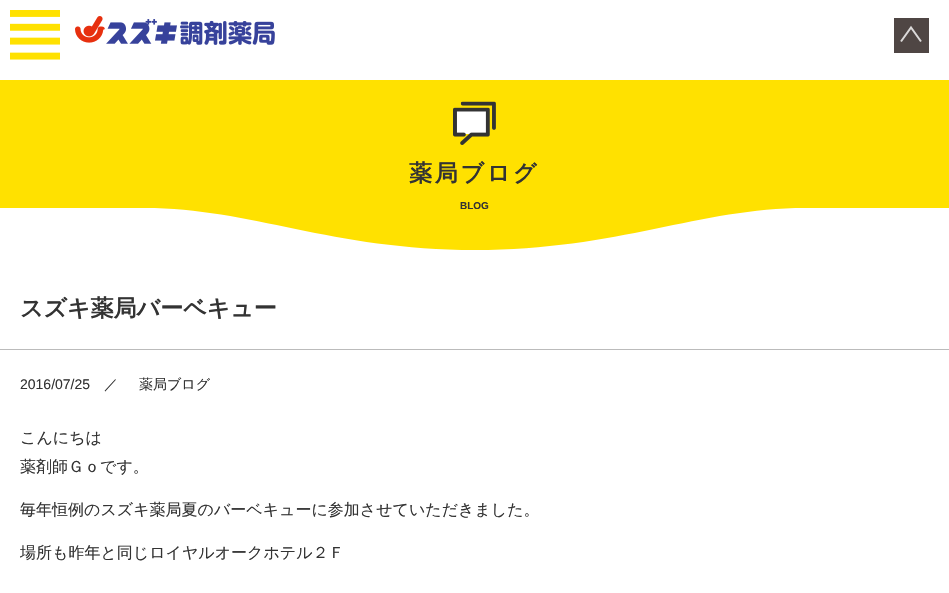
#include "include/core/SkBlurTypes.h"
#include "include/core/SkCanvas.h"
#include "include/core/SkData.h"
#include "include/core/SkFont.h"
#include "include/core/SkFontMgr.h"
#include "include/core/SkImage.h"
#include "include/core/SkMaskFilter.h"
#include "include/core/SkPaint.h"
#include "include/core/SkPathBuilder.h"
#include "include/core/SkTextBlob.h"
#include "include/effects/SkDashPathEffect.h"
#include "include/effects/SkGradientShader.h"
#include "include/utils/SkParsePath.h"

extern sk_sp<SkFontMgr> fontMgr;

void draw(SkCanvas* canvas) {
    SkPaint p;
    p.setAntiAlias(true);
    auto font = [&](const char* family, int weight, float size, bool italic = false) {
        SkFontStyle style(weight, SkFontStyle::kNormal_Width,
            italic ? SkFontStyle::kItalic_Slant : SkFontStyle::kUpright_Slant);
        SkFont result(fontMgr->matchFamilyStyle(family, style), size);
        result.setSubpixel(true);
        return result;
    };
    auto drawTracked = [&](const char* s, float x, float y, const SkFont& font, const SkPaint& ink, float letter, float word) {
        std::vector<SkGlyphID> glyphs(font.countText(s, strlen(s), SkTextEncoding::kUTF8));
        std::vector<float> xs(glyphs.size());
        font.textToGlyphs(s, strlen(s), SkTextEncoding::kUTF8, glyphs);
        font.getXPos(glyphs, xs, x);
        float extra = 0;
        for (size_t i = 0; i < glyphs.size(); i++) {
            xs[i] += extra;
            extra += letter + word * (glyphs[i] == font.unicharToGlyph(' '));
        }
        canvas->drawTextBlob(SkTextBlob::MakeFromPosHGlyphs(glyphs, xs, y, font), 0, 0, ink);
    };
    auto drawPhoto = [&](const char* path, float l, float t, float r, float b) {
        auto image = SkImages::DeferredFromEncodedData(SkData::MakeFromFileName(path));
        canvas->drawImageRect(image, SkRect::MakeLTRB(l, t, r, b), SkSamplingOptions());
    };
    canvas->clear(0xFFFFFFFF);
    drawPhoto("media/1.png", 10, 10, 60, 60);
    drawPhoto("media/2.png", 75, 16, 275, 45);
    p.setColor(0xFF4F4644);
    canvas->drawRect(SkRect::MakeLTRB(894, 18, 929, 53), p);
    p.setStyle(SkPaint::kStroke_Style);
    p.setStrokeWidth(2);
    p.setColor(0xFFDBD9D9);
    canvas->drawPath(SkPathBuilder().moveTo(901, 41.5f).lineTo(911, 27.5f).lineTo(921, 41.5f).detach(), p);
    p.setStyle(SkPaint::kFill_Style);
    p.setColor(0xFFFFE100);
    canvas->drawRect(SkRect::MakeLTRB(0, 80, 949, 208), p);
    drawPhoto("media/3.png", 453, 101, 496, 145);
    auto font1 = font("WenQuanYi Zen Hei", 700, 23);
    p.setColor(0xFF333333);
    drawTracked("薬局ブログ", 409, 181, font1, p, 2.75f, 0);
    p.setColor(0xFFFFE100);
    canvas->drawPath(SkPathBuilder().moveTo(805, 208).cubicTo(699, 208, 619, 250, 475, 250).cubicTo(331, 250, 251, 208, 145, 208).close().detach(), p);
    auto font2 = font("Liberation Sans", 700, 10);
    p.setColor(0xFF333333);
    canvas->drawString("BLOG", 460, 209, font2, p);
    canvas->drawString("スズキ薬局バーベキュー", 20, 316, font1, p);
    p.setColor(0xFFBBBBBB);
    canvas->drawRect(SkRect::MakeLTRB(0, 349, 949, 350), p);
    auto font3 = font("Liberation Sans", 400, 14);
    p.setColor(0xFF333333);
    canvas->drawString("2016/07/25", 20, 389, font3, p);
    auto font4 = font("WenQuanYi Zen Hei", 500, 14);
    canvas->drawString("／", 104, 389, font4, p);
    canvas->drawString("薬局ブログ", 139, 389, font4, p);
    auto font5 = font("WenQuanYi Zen Hei", 500, 16);
    {
        const struct { const char* s; float x, y; } items[] = {
            {"こんにちは", 20, 443},
            {"薬剤師Ｇｏです。", 20, 472},
            {"毎年恒例のスズキ薬局夏のバーベキューに参加させていただきました。", 20, 515},
            {"場所も昨年と同じロイヤルオークホテル２Ｆ", 20, 558},
        };
        for (auto [s, x, y] : items) {
            canvas->drawString(s, x, y, font5, p);
        }
    }
}
